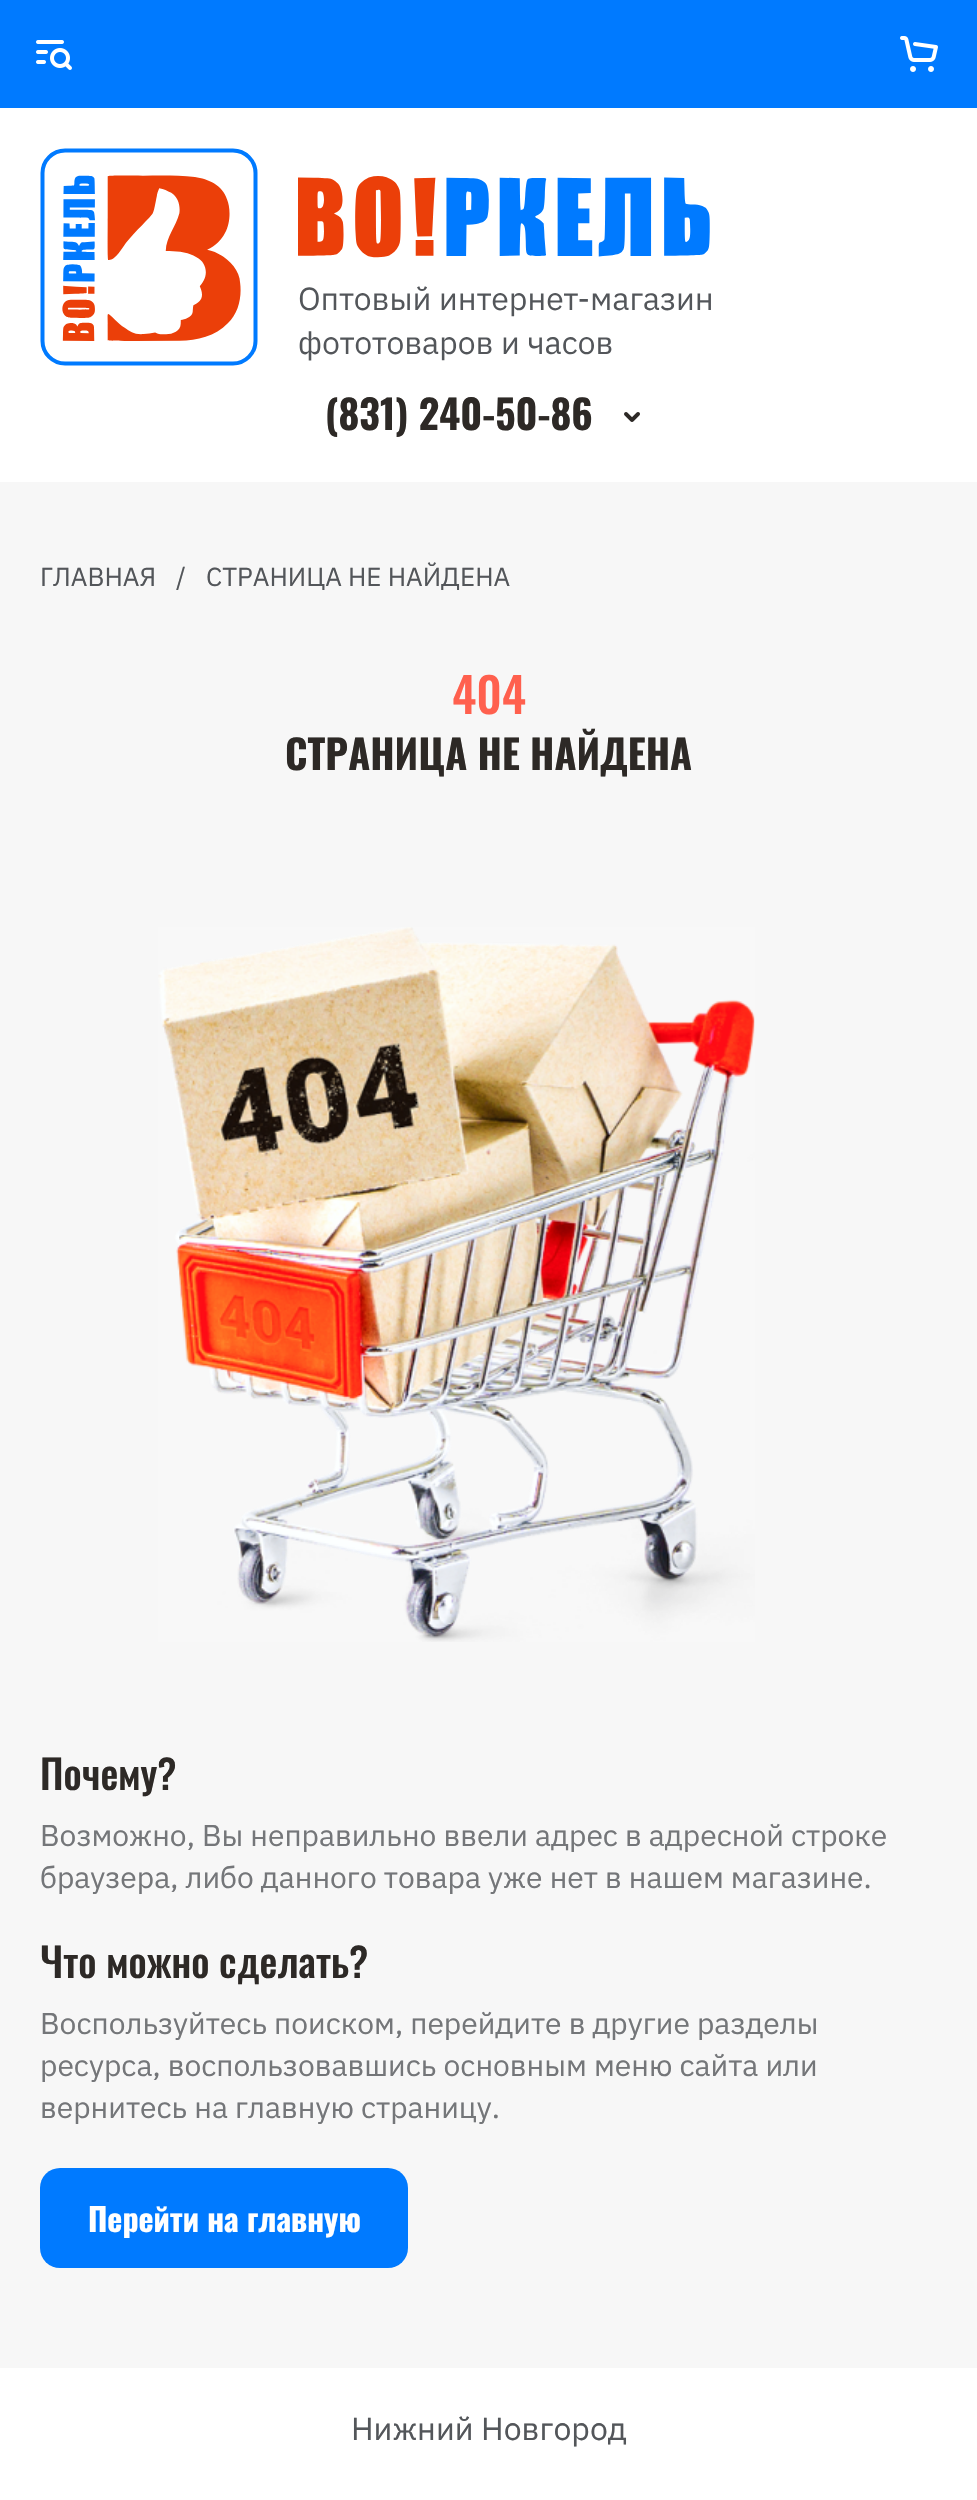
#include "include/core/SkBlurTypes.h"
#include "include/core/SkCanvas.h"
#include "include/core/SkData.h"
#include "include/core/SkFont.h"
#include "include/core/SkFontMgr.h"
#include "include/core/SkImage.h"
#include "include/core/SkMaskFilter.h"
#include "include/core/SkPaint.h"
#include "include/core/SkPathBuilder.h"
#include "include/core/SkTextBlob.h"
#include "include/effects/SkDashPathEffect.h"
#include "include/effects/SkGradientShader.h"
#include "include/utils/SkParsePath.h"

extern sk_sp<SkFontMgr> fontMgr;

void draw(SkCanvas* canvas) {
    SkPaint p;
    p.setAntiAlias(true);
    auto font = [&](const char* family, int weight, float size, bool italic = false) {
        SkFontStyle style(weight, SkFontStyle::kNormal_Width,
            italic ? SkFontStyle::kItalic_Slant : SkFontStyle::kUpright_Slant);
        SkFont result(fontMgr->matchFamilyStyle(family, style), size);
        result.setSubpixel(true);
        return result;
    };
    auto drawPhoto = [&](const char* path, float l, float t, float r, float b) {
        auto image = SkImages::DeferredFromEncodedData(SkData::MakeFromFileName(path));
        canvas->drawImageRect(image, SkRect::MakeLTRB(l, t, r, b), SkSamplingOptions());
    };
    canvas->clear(0xFFF7F7F7);
    p.setColor(0xFF007AFF);
    canvas->drawRect(SkRect::MakeLTRB(0, 0, 977, 108), p);
    drawPhoto("media/1.png", 36, 40, 72, 70);
    drawPhoto("media/2.png", 900, 36, 938, 72);
    p.setColor(0xFFFFFFFF);
    canvas->drawRect(SkRect::MakeLTRB(0, 108, 977, 482), p);
    drawPhoto("media/3.png", 40, 148, 711, 366);
    auto font1 = font("Oswald", 700, 40);
    p.setColor(0xFF2D2926);
    canvas->drawString("(831) 240-50-86", 325, 430, font1, p);
    drawPhoto("media/4.png", 624, 412, 640, 422);
    auto font2 = font("IBM Plex Sans", 400, 26);
    p.setColor(0xFF53565A);
    {
        const struct { const char* s; float x, y; } items[] = {
            {"ГЛАВНАЯ", 40, 586},
            {"/", 176, 586},
            {"СТРАНИЦА НЕ НАЙДЕНА", 206, 586},
        };
        for (auto [s, x, y] : items) {
            canvas->drawString(s, x, y, font2, p);
        }
    }
    auto font3 = font("Oswald", 500, 48);
    p.setColor(0xFFFF604E);
    canvas->drawString("404", 452, 714, font3, p);
    p.setColor(0xFF2D2926);
    canvas->drawString("СТРАНИЦА НЕ НАЙДЕНА", 285, 770, font1, p);
    drawPhoto("media/5.png", 158, 927, 755, 1642);
    auto font4 = font("Oswald", 500, 40);
    canvas->drawString("Почему?", 40, 1790, font4, p);
    auto font5 = font("IBM Plex Sans", 400, 30);
    p.setColor(0xFF747679);
    canvas->drawString("Возможно, Вы неправильно ввели адрес в адресной строке", 40, 1846, font5, p);
    canvas->drawString("браузера, либо данного товара уже нет в нашем магазине.", 40, 1888, font5, p);
    p.setColor(0xFF2D2926);
    canvas->drawString("Что можно сделать?", 40, 1978, font4, p);
    p.setColor(0xFF747679);
    {
        const struct { const char* s; float x, y; } items[] = {
            {"Воспользуйтесь поиском, перейдите в другие разделы", 40, 2034},
            {"ресурса, воспользовавшись основным меню сайта или", 40, 2076},
            {"вернитесь на главную страницу.", 40, 2118},
        };
        for (auto [s, x, y] : items) {
            canvas->drawString(s, x, y, font5, p);
        }
    }
    p.setColor(0xFF007AFF);
    canvas->drawRoundRect(SkRect::MakeLTRB(40, 2168, 408, 2268), 20, 20, p);
    auto font6 = font("Oswald", 700, 32);
    p.setColor(0xFFFFFFFF);
    canvas->drawString("Перейти на главную", 88, 2232, font6, p);
    canvas->drawRect(SkRect::MakeLTRB(0, 2368, 977, 2500), p);
    auto font7 = font("IBM Plex Sans", 400, 32);
    p.setColor(0xFF53565A);
    canvas->drawString("Нижний Новгород", 351, 2440, font7, p);
}
